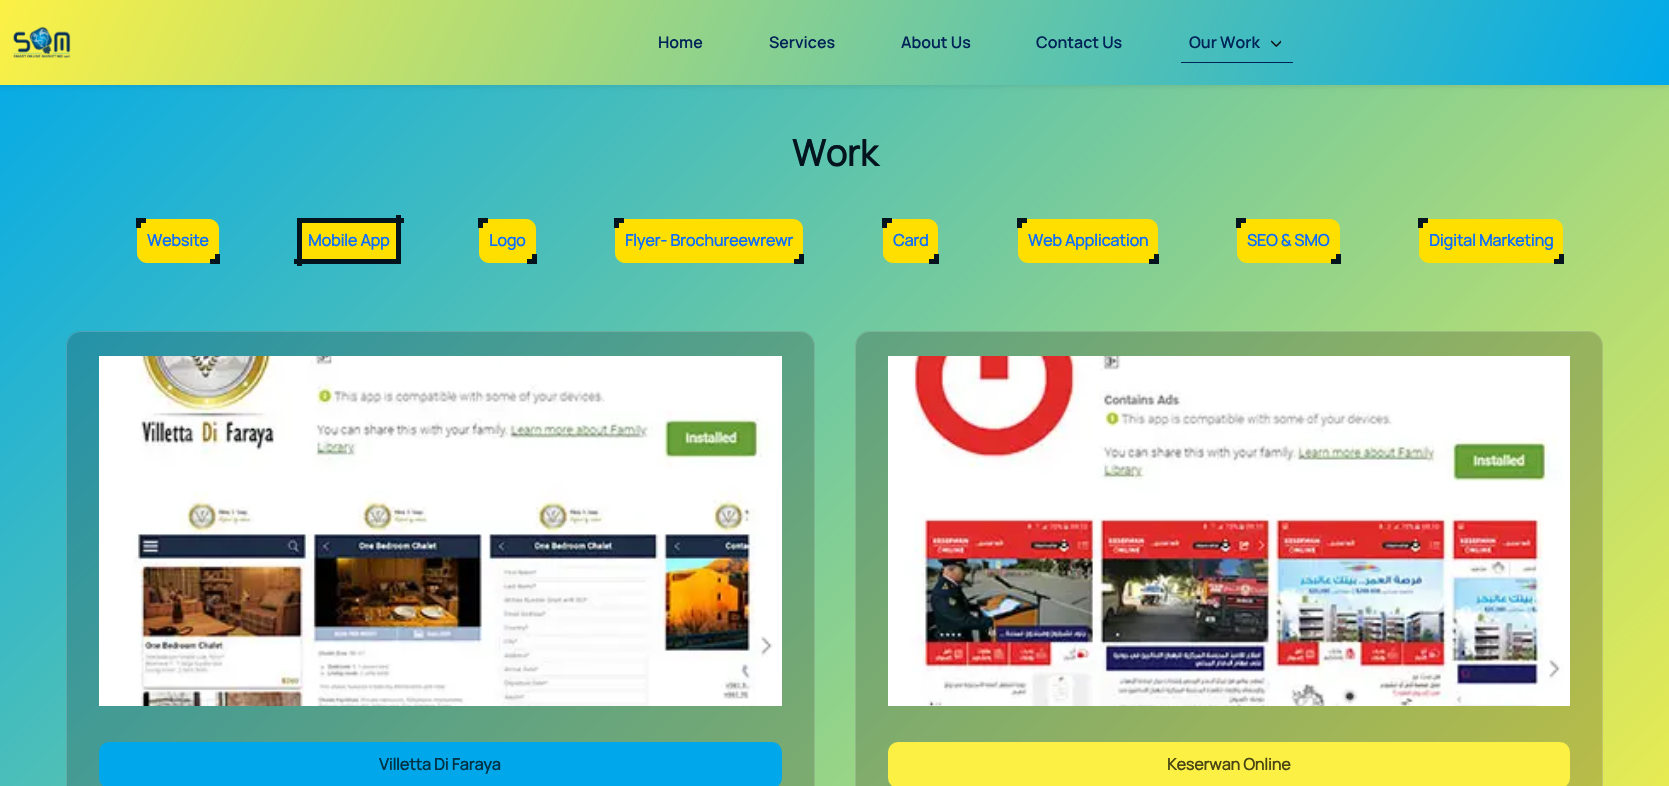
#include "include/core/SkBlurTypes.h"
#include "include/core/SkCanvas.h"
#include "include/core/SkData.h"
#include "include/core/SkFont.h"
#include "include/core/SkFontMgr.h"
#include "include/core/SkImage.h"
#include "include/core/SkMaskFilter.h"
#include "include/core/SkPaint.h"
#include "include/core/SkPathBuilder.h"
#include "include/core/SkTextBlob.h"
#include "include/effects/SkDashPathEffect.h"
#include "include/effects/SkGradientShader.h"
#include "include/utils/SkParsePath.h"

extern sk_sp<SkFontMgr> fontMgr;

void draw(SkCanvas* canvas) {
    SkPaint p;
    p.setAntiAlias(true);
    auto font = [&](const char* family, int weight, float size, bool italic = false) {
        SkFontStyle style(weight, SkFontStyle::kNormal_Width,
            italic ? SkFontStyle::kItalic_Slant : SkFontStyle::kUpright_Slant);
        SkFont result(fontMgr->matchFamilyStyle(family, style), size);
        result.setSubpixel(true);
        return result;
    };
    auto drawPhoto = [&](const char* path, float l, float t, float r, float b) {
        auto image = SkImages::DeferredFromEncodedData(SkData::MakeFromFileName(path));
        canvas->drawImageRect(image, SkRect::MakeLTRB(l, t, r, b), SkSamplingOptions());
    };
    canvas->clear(0xFFFFFFFF);
    {
        const SkColor colors[] = {0xFF00A9EA, 0xFFFCF145};
        const float stops[] = {0, 1};
        const SkPoint ends[] = {{165, -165}, {1504, 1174}};
        p.setShader(SkGradientShader::MakeLinear(ends, colors, stops, 2, SkTileMode::kClamp));
        p.setAlpha(255);
    }
    canvas->drawRect(SkRect::MakeLTRB(0, 85, 1669, 786), p);
    p.setShader(nullptr);
    p.setColor(0x12000000);
    p.setMaskFilter(SkMaskFilter::MakeBlur(kNormal_SkBlurStyle, 2));
    canvas->drawRect(SkRect::MakeLTRB(0, 2, 1669, 87), p);
    p.setMaskFilter(nullptr);
    {
        const SkColor colors[] = {0xFFFCF145, 0xFF00A9EA};
        const float stops[] = {0, 1};
        const SkPoint ends[] = {{133, -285}, {1536, 370}};
        p.setShader(SkGradientShader::MakeLinear(ends, colors, stops, 2, SkTileMode::kClamp));
        p.setAlpha(255);
    }
    canvas->drawRect(SkRect::MakeLTRB(0, 0, 1669, 85), p);
    drawPhoto("media/1.png", 13, 26, 71, 58);
    auto font1 = font("Manrope", 600, 16);
    p.setShader(nullptr);
    p.setColor(0xFF002457);
    {
        const struct { const char* s; float x, y; } items[] = {
            {"Home", 658, 48},
            {"Services", 769, 48},
            {"About Us", 901, 48},
            {"Contact Us", 1036, 48},
            {"Our Work", 1189, 48},
        };
        for (auto [s, x, y] : items) {
            canvas->drawString(s, x, y, font1, p);
        }
    }
    drawPhoto("media/2.png", 1271, 40, 1281, 47);
    canvas->drawRect(SkRect::MakeLTRB(1181, 62, 1293, 63), p);
    auto font2 = font("Manrope", 700, 36);
    p.setColor(0xFF03141F);
    canvas->drawString("Work", 792, 166, font2, p);
    p.setColor(0xFFFFDF00);
    canvas->drawPath(SkPathBuilder().moveTo(137, 219).lineTo(209, 219).cubicTo(214.5f, 219, 219, 223.5f, 219, 229).lineTo(219, 263).lineTo(147, 263).cubicTo(141.5f, 263, 137, 258.5f, 137, 253).close().detach(), p);
    p.setColor(0xFF03141F);
    canvas->drawRect(SkRect::MakeLTRB(136, 218, 146, 223), p);
    canvas->drawRect(SkRect::MakeLTRB(136, 218, 141, 228), p);
    auto font3 = font("Manrope", 700, 16);
    p.setColor(0xFF0D6EFD);
    canvas->drawString("Website", 147, 246, font3, p);
    {
        const struct { float l, t, r, b; SkColor color; } items[] = {
            {215, 254, 220, 264, 0xFF03141F},
            {210, 259, 220, 264, 0xFF03141F},
            {302, 223, 396, 259, 0xFFFFDF00},
            {297, 218, 404, 223, 0xFF03141F},
            {396, 215, 401, 264, 0xFF03141F},
            {297, 218, 302, 266, 0xFF03141F},
            {294, 259, 401, 264, 0xFF03141F},
        };
        for (auto [l, t, r, b, color] : items) {
            p.setColor(color);
            canvas->drawRect(SkRect::MakeLTRB(l, t, r, b), p);
        }
    }
    p.setColor(0xFF0D6EFD);
    canvas->drawString("Mobile App", 308, 246, font3, p);
    p.setColor(0xFFFFDF00);
    canvas->drawPath(SkPathBuilder().moveTo(479, 219).lineTo(526, 219).cubicTo(531.5f, 219, 536, 223.5f, 536, 229).lineTo(536, 263).lineTo(489, 263).cubicTo(483.5f, 263, 479, 258.5f, 479, 253).close().detach(), p);
    p.setColor(0xFF03141F);
    canvas->drawRect(SkRect::MakeLTRB(478, 218, 488, 223), p);
    canvas->drawRect(SkRect::MakeLTRB(478, 218, 483, 228), p);
    p.setColor(0xFF0D6EFD);
    canvas->drawString("Logo", 489, 246, font3, p);
    p.setColor(0xFF03141F);
    canvas->drawRect(SkRect::MakeLTRB(532, 254, 537, 264), p);
    canvas->drawRect(SkRect::MakeLTRB(527, 259, 537, 264), p);
    p.setColor(0xFFFFDF00);
    canvas->drawPath(SkPathBuilder().moveTo(615, 219).lineTo(793, 219).cubicTo(798.5f, 219, 803, 223.5f, 803, 229).lineTo(803, 263).lineTo(625, 263).cubicTo(619.5f, 263, 615, 258.5f, 615, 253).close().detach(), p);
    p.setColor(0xFF03141F);
    canvas->drawRect(SkRect::MakeLTRB(614, 218, 624, 223), p);
    canvas->drawRect(SkRect::MakeLTRB(614, 218, 619, 228), p);
    p.setColor(0xFF0D6EFD);
    canvas->drawString("Flyer- Brochureewrewr", 625, 246, font3, p);
    p.setColor(0xFF03141F);
    canvas->drawRect(SkRect::MakeLTRB(799, 254, 804, 264), p);
    canvas->drawRect(SkRect::MakeLTRB(794, 259, 804, 264), p);
    p.setColor(0xFFFFDF00);
    canvas->drawPath(SkPathBuilder().moveTo(883, 219).lineTo(928, 219).cubicTo(933.5f, 219, 938, 223.5f, 938, 229).lineTo(938, 263).lineTo(893, 263).cubicTo(887.5f, 263, 883, 258.5f, 883, 253).close().detach(), p);
    p.setColor(0xFF03141F);
    canvas->drawRect(SkRect::MakeLTRB(882, 218, 892, 223), p);
    canvas->drawRect(SkRect::MakeLTRB(882, 218, 887, 228), p);
    p.setColor(0xFF0D6EFD);
    canvas->drawString("Card", 893, 246, font3, p);
    p.setColor(0xFF03141F);
    canvas->drawRect(SkRect::MakeLTRB(934, 254, 939, 264), p);
    canvas->drawRect(SkRect::MakeLTRB(929, 259, 939, 264), p);
    p.setColor(0xFFFFDF00);
    canvas->drawPath(SkPathBuilder().moveTo(1018, 219).lineTo(1148, 219).cubicTo(1153.5f, 219, 1158, 223.5f, 1158, 229).lineTo(1158, 263).lineTo(1028, 263).cubicTo(1022.5f, 263, 1018, 258.5f, 1018, 253).close().detach(), p);
    p.setColor(0xFF03141F);
    canvas->drawRect(SkRect::MakeLTRB(1017, 218, 1027, 223), p);
    canvas->drawRect(SkRect::MakeLTRB(1017, 218, 1022, 228), p);
    p.setColor(0xFF0D6EFD);
    canvas->drawString("Web Application", 1028, 246, font3, p);
    p.setColor(0xFF03141F);
    canvas->drawRect(SkRect::MakeLTRB(1154, 254, 1159, 264), p);
    canvas->drawRect(SkRect::MakeLTRB(1149, 259, 1159, 264), p);
    p.setColor(0xFFFFDF00);
    canvas->drawPath(SkPathBuilder().moveTo(1237, 219).lineTo(1330, 219).cubicTo(1335.5f, 219, 1340, 223.5f, 1340, 229).lineTo(1340, 263).lineTo(1247, 263).cubicTo(1241.5f, 263, 1237, 258.5f, 1237, 253).close().detach(), p);
    p.setColor(0xFF03141F);
    canvas->drawRect(SkRect::MakeLTRB(1236, 218, 1246, 223), p);
    canvas->drawRect(SkRect::MakeLTRB(1236, 218, 1241, 228), p);
    p.setColor(0xFF0D6EFD);
    canvas->drawString("SEO & SMO", 1247, 246, font3, p);
    p.setColor(0xFF03141F);
    canvas->drawRect(SkRect::MakeLTRB(1336, 254, 1341, 264), p);
    canvas->drawRect(SkRect::MakeLTRB(1331, 259, 1341, 264), p);
    p.setColor(0xFFFFDF00);
    canvas->drawPath(SkPathBuilder().moveTo(1419, 219).lineTo(1553, 219).cubicTo(1558.5f, 219, 1563, 223.5f, 1563, 229).lineTo(1563, 263).lineTo(1429, 263).cubicTo(1423.5f, 263, 1419, 258.5f, 1419, 253).close().detach(), p);
    p.setColor(0xFF03141F);
    canvas->drawRect(SkRect::MakeLTRB(1418, 218, 1428, 223), p);
    canvas->drawRect(SkRect::MakeLTRB(1418, 218, 1423, 228), p);
    p.setColor(0xFF0D6EFD);
    canvas->drawString("Digital Marketing", 1429, 246, font3, p);
    p.setColor(0xFF03141F);
    canvas->drawRect(SkRect::MakeLTRB(1559, 254, 1564, 264), p);
    canvas->drawRect(SkRect::MakeLTRB(1554, 259, 1564, 264), p);
    p.setColor(0x331A0B0B);
    canvas->drawRoundRect(SkRect::MakeLTRB(66, 331, 815, 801), 15, 15, p);
    p.setStyle(SkPaint::kStroke_Style);
    p.setStrokeWidth(1);
    p.setColor(0x33ECEFF1);
    canvas->drawRoundRect(SkRect::MakeLTRB(66.5f, 331.5f, 814.5f, 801.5f), 14.5f, 14.5f, p);
    drawPhoto("media/3.png", 99, 356, 782, 706);
    p.setStyle(SkPaint::kFill_Style);
    p.setColor(0xFF00A8EB);
    canvas->drawRoundRect(SkRect::MakeLTRB(99, 742, 782, 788), 10, 10, p);
    p.setColor(0xFF003144);
    canvas->drawString("Villetta Di Faraya", 379, 770, font3, p);
    p.setColor(0x331A0B0B);
    canvas->drawRoundRect(SkRect::MakeLTRB(855, 331, 1603, 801), 15, 15, p);
    p.setStyle(SkPaint::kStroke_Style);
    p.setColor(0x33ECEFF1);
    canvas->drawRoundRect(SkRect::MakeLTRB(855.5f, 331.5f, 1602.5f, 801.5f), 14.5f, 14.5f, p);
    drawPhoto("media/4.png", 888, 356, 1570, 706);
    p.setStyle(SkPaint::kFill_Style);
    p.setColor(0xFFFCF045);
    canvas->drawRoundRect(SkRect::MakeLTRB(888, 742, 1570, 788), 10, 10, p);
    p.setColor(0xFF494614);
    canvas->drawString("Keserwan Online", 1167, 770, font3, p);
}
